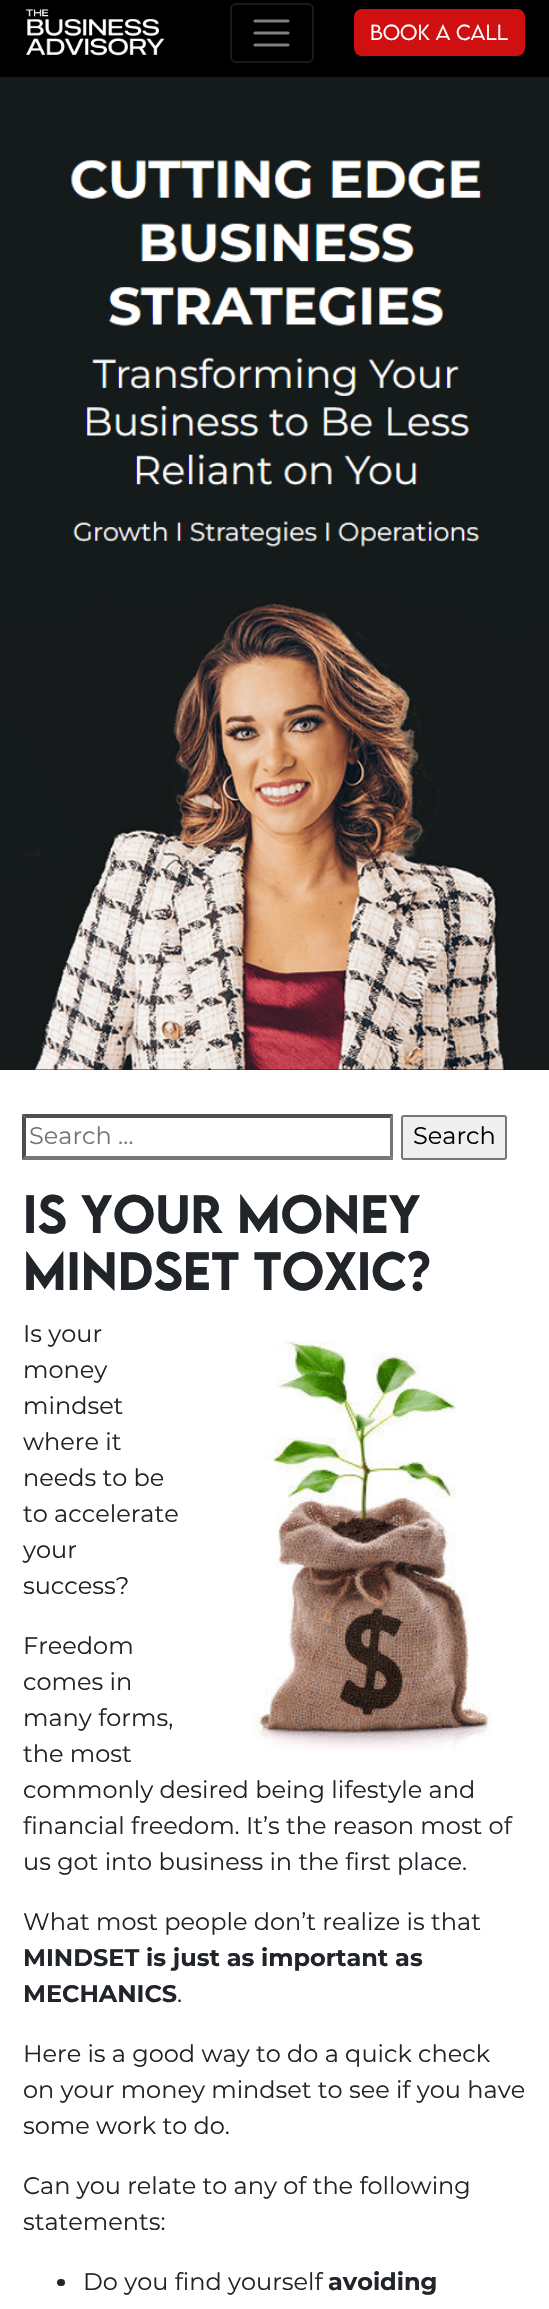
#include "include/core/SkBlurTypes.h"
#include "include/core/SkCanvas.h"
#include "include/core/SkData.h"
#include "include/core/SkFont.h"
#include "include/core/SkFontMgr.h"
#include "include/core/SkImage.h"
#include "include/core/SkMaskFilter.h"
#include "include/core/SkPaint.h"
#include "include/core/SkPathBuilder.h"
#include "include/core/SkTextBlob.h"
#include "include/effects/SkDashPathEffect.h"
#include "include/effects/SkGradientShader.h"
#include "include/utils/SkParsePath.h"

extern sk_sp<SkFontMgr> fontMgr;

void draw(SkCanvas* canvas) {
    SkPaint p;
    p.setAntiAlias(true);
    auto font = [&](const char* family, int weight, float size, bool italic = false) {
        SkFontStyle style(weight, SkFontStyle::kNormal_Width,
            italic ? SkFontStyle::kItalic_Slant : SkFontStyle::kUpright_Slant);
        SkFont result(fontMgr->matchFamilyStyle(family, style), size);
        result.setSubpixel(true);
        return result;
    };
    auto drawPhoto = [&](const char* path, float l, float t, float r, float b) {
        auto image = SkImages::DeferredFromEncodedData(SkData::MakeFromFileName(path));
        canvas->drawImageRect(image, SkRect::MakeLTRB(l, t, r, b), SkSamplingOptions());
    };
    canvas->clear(0xFFFFFFFF);
    p.setColor(0xFF000000);
    canvas->drawRect(SkRect::MakeLTRB(0, 0, 549, 77), p);
    drawPhoto("media/1.png", 25, 9, 165, 56);
    p.setStyle(SkPaint::kStroke_Style);
    p.setStrokeWidth(2);
    p.setColor(0xFF1A1A1A);
    canvas->drawRoundRect(SkRect::MakeLTRB(231, 4, 313, 62), 5, 5, p);
    p.setStrokeWidth(3);
    p.setStrokeCap(SkPaint::kRound_Cap);
    p.setColor(0xFF808080);
    canvas->drawPath(SkPathBuilder().moveTo(255, 21).lineTo(288, 21).moveTo(255, 33).lineTo(288, 33).moveTo(255, 45).lineTo(288, 45).detach(), p);
    p.setStyle(SkPaint::kFill_Style);
    p.setColor(0xFFD00F10);
    canvas->drawRoundRect(SkRect::MakeLTRB(355, 10, 524, 55), 7, 7, p);
    p.setStyle(SkPaint::kStroke_Style);
    p.setStrokeWidth(2);
    p.setStrokeCap(SkPaint::kButt_Cap);
    canvas->drawRoundRect(SkRect::MakeLTRB(355, 10, 524, 55), 7, 7, p);
    auto font1 = font("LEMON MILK", 300, 19.5f);
    p.setStyle(SkPaint::kFill_Style);
    p.setColor(0xFFFFFFFF);
    canvas->drawString("Book a Call", 370, 40, font1, p);
    p.setColor(0xFF151A1A);
    canvas->drawRect(SkRect::MakeLTRB(0, 1069, 549, 1070), p);
    drawPhoto("media/2.png", 0, 77, 549, 1070);
    p.setColor(0xFF4F4F4F);
    canvas->drawPath(SkPathBuilder().moveTo(22, 1114).lineTo(393, 1114).lineTo(390, 1118).lineTo(26, 1118).close().detach(), p);
    p.setColor(0xFF767676);
    canvas->drawPath(SkPathBuilder().moveTo(393, 1114).lineTo(393, 1160).lineTo(390, 1156).lineTo(390, 1118).close().detach(), p);
    canvas->drawPath(SkPathBuilder().moveTo(393, 1160).lineTo(22, 1160).lineTo(26, 1156).lineTo(390, 1156).close().detach(), p);
    p.setColor(0xFF4F4F4F);
    canvas->drawPath(SkPathBuilder().moveTo(22, 1160).lineTo(22, 1114).lineTo(26, 1118).lineTo(26, 1156).close().detach(), p);
    auto font2 = font("Montserrat", 400, 24);
    p.setColor(0xFF757575);
    canvas->drawString("Search …", 29, 1144, font2, p);
    p.setColor(0xFFEFEFEF);
    canvas->drawRoundRect(SkRect::MakeLTRB(402, 1116, 506, 1159), 2, 2, p);
    p.setStyle(SkPaint::kStroke_Style);
    p.setColor(0xFF767676);
    canvas->drawRoundRect(SkRect::MakeLTRB(402, 1116, 506, 1159), 2, 2, p);
    p.setStyle(SkPaint::kFill_Style);
    p.setColor(0xFF000000);
    canvas->drawString("Search", 413, 1144, font2, p);
    auto font3 = font("LEMON MILK", 500, 48);
    p.setColor(0xFF212529);
    canvas->drawString("IS YOUR MONEY", 23, 1233, font3, p);
    canvas->drawString("MINDSET TOXIC?", 23, 1290, font3, p);
    canvas->drawString("Is your", 23, 1342, font2, p);
    canvas->drawString("money", 23, 1378, font2, p);
    drawPhoto("media/3.png", 252, 1341, 492, 1751);
    {
        const struct { const char* s; float x, y; } items[] = {
            {"mindset", 23, 1414},
            {"where it", 23, 1450},
            {"needs to be", 23, 1486},
            {"to accelerate", 23, 1522},
            {"your", 23, 1558},
            {"success?", 23, 1594},
            {"Freedom", 23, 1654},
            {"comes in", 23, 1690},
            {"many forms,", 23, 1726},
            {"the most", 23, 1762},
            {"commonly desired being lifestyle and", 23, 1798},
            {"financial freedom. It’s the reason most of", 23, 1834},
            {"us got into business in the first place.", 23, 1870},
            {"What most people don’t realize is that", 23, 1930},
        };
        for (auto [s, x, y] : items) {
            canvas->drawString(s, x, y, font2, p);
        }
    }
    auto font4 = font("Montserrat", 700, 24);
    canvas->drawString("MINDSET is just as important as", 23, 1966, font4, p);
    canvas->drawString("MECHANICS", 23, 2002, font4, p);
    {
        const struct { const char* s; float x, y; } items[] = {
            {".", 177, 2002},
            {"Here is a good way to do a quick check", 23, 2062},
            {"on your money mindset to see if you have", 23, 2098},
            {"some work to do.", 23, 2134},
            {"Can you relate to any of the following", 23, 2194},
            {"statements:", 23, 2230},
        };
        for (auto [s, x, y] : items) {
            canvas->drawString(s, x, y, font2, p);
        }
    }
    canvas->drawRoundRect(SkRect::MakeLTRB(57, 2279, 65, 2286), 3.5f, 3.5f, p);
    canvas->drawString("Do you find yourself", 83, 2290, font2, p);
    canvas->drawString("avoiding", 328, 2290, font4, p);
}
